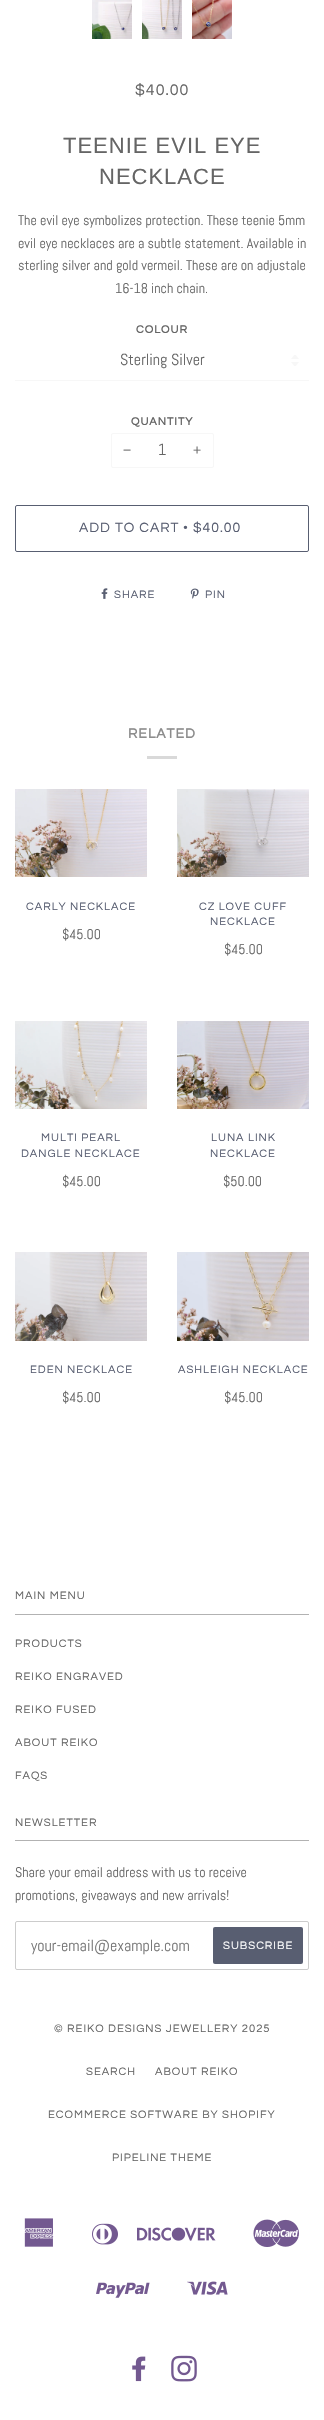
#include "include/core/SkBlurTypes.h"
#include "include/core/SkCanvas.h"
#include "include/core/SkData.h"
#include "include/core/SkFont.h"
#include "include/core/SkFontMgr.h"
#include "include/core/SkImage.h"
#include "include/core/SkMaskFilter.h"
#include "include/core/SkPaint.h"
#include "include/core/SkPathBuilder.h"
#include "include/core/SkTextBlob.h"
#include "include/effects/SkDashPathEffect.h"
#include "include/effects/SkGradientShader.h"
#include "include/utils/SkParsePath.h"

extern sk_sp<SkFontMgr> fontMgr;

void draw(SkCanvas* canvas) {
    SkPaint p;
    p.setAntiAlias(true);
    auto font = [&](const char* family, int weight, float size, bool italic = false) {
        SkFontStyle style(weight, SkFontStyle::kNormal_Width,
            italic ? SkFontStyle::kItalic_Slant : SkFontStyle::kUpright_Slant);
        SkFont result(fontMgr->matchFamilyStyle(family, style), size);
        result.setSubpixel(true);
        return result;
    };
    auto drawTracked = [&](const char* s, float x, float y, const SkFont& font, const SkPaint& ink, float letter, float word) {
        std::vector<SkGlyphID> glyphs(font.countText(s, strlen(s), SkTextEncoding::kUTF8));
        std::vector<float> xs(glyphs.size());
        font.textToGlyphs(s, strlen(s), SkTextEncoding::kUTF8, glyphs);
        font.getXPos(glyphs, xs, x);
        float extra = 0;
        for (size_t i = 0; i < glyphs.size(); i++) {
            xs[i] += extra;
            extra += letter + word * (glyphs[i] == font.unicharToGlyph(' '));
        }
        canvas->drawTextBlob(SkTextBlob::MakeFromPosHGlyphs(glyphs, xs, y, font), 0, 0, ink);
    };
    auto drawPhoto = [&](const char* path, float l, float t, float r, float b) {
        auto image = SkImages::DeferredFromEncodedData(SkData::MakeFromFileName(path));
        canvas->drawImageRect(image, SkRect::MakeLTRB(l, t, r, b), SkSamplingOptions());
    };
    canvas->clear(0xFFFFFFFF);
    drawPhoto("media/1.png", 92, 0, 132, 39);
    drawPhoto("media/2.png", 142, 0, 182, 39);
    drawPhoto("media/3.png", 192, 0, 232, 39);
    auto font1 = font("Questrial", 400, 16);
    p.setColor(0xFF656565);
    drawTracked("$40.00", 135, 95, font1, p, 1, 0);
    auto font2 = font("Liberation Sans", 400, 22);
    drawTracked("TEENIE EVIL EYE", 63, 153, font2, p, 1, 0);
    drawTracked("NECKLACE", 99, 184, font2, p, 1, 0);
    auto font3 = font("Abel", 400, 14);
    {
        const struct { const char* s; float x, y; } items[] = {
            {"The evil eye symbolizes protection. These teenie 5mm", 18, 225},
            {"evil eye necklaces are a subtle statement. Available in", 18, 248},
            {"sterling silver and gold vermeil. These are on adjustale", 18, 270},
            {"16-18 inch chain.", 115, 293},
        };
        for (auto [s, x, y] : items) {
            canvas->drawString(s, x, y, font3, p);
        }
    }
    auto font4 = font("Questrial", 700, 11.2f);
    drawTracked("COLOUR", 136, 333, font4, p, 1, 0);
    drawPhoto("media/4.png", 291, 355, 299, 366);
    p.setColor(0xFFF7F7F7);
    canvas->drawRect(SkRect::MakeLTRB(15, 380, 309, 381), p);
    auto font5 = font("Abel", 400, 16);
    p.setColor(0xFF656565);
    canvas->drawString("Sterling Silver", 120, 365, font5, p);
    drawTracked("QUANTITY", 131, 425, font4, p, 1, 0);
    p.setStyle(SkPaint::kStroke_Style);
    p.setStrokeWidth(1);
    p.setColor(0xFFF7F7F7);
    canvas->drawRoundRect(SkRect::MakeLTRB(111.5f, 433.5f, 213.5f, 467.5f), 1.5f, 1.5f, p);
    p.setStyle(SkPaint::kFill_Style);
    p.setColor(0xFF656565);
    canvas->drawString("−", 123, 455, font3, p);
    canvas->drawString("1", 158, 455, font5, p);
    canvas->drawString("+", 193, 455, font3, p);
    p.setStyle(SkPaint::kStroke_Style);
    p.setColor(0xFF585E71);
    canvas->drawRoundRect(SkRect::MakeLTRB(15.5f, 505.5f, 308.5f, 551.5f), 1.5f, 1.5f, p);
    auto font6 = font("Questrial", 400, 14);
    p.setStyle(SkPaint::kFill_Style);
    drawTracked("ADD TO CART", 79, 532, font6, p, 1, 0);
    auto font7 = font("Liberation Serif", 400, 14);
    drawTracked("•", 183, 532, font7, p, 1, 0);
    drawTracked("$40.00", 193, 532, font6, p, 1, 0);
    drawPhoto("media/5.png", 101, 588, 108, 599);
    auto font8 = font("Questrial", 400, 11.2f);
    drawTracked("SHARE", 114, 598, font8, p, 1, 0);
    drawPhoto("media/6.png", 190, 588, 199, 599);
    drawTracked("PIN", 205, 598, font8, p, 1, 0);
    auto font9 = font("Questrial", 700, 14);
    p.setColor(0xFF8C8C8C);
    drawTracked("RELATED", 128, 738, font9, p, 1, 0);
    p.setColor(0xFFD9D9D9);
    canvas->drawRect(SkRect::MakeLTRB(147, 756, 177, 759), p);
    drawPhoto("media/7.png", 15, 789, 147, 877);
    p.setColor(0xFF585E71);
    drawTracked("CARLY NECKLACE", 26, 910, font8, p, 1, 0);
    p.setColor(0xFF656565);
    canvas->drawString("$45.00", 62, 939, font3, p);
    drawPhoto("media/8.png", 177, 789, 309, 877);
    p.setColor(0xFF585E71);
    drawTracked("CZ LOVE CUFF", 199, 910, font8, p, 1, 0);
    drawTracked("NECKLACE", 210, 925, font8, p, 1, 0);
    p.setColor(0xFF656565);
    canvas->drawString("$45.00", 224, 954, font3, p);
    drawPhoto("media/9.png", 15, 1021, 147, 1109);
    p.setColor(0xFF585E71);
    drawTracked("MULTI PEARL", 41, 1141, font8, p, 1, 0);
    drawTracked("DANGLE NECKLACE", 21, 1157, font8, p, 1, 0);
    p.setColor(0xFF656565);
    canvas->drawString("$45.00", 62, 1186, font3, p);
    drawPhoto("media/10.png", 177, 1021, 309, 1109);
    p.setColor(0xFF585E71);
    drawTracked("LUNA LINK", 211, 1141, font8, p, 1, 0);
    drawTracked("NECKLACE", 210, 1157, font8, p, 1, 0);
    p.setColor(0xFF656565);
    canvas->drawString("$50.00", 223, 1186, font3, p);
    drawPhoto("media/11.png", 15, 1252, 147, 1341);
    p.setColor(0xFF585E71);
    drawTracked("EDEN NECKLACE", 30, 1373, font8, p, 1, 0);
    p.setColor(0xFF656565);
    canvas->drawString("$45.00", 62, 1402, font3, p);
    drawPhoto("media/12.png", 177, 1252, 309, 1341);
    p.setColor(0xFF585E71);
    drawTracked("ASHLEIGH NECKLACE", 178, 1373, font8, p, 1, 0);
    p.setColor(0xFF656565);
    canvas->drawString("$45.00", 224, 1402, font3, p);
    drawTracked("MAIN MENU", 15, 1599, font8, p, 1, 0);
    p.setColor(0xFFB2B2B2);
    canvas->drawRect(SkRect::MakeLTRB(15, 1614, 309, 1615), p);
    p.setColor(0xFF656565);
    {
        const struct { const char* s; float x, y; } items[] = {
            {"PRODUCTS", 15, 1647},
            {"REIKO ENGRAVED", 15, 1680},
            {"REIKO FUSED", 15, 1713},
            {"ABOUT REIKO", 15, 1746},
            {"FAQS", 15, 1779},
            {"NEWSLETTER", 15, 1826},
        };
        for (auto [s, x, y] : items) {
            drawTracked(s, x, y, font8, p, 1, 0);
        }
    }
    p.setColor(0xFFB2B2B2);
    canvas->drawRect(SkRect::MakeLTRB(15, 1840, 309, 1841), p);
    p.setColor(0xFF656565);
    canvas->drawString("Share your email address with us to receive", 15, 1877, font3, p);
    canvas->drawString("promotions, giveaways and new arrivals!", 15, 1900, font3, p);
    p.setStyle(SkPaint::kStroke_Style);
    p.setColor(0xFFCCCCCC);
    canvas->drawRoundRect(SkRect::MakeLTRB(15.5f, 1921.5f, 308.5f, 1969.5f), 1.5f, 1.5f, p);
    p.setStyle(SkPaint::kFill_Style);
    p.setColor(0xFF757575);
    canvas->drawString("your-email@example.com", 31, 1951, font5, p);
    p.setColor(0xFF585E71);
    canvas->drawRoundRect(SkRect::MakeLTRB(213, 1927, 303, 1964), 2, 2, p);
    p.setColor(0xFFFFFFFF);
    drawTracked("SUBSCRIBE", 223, 1949, font8, p, 1, 0);
    p.setColor(0xFF656565);
    {
        const struct { const char* s; float x, y; } items[] = {
            {"© REIKO DESIGNS JEWELLERY 2025", 54, 2032},
            {"SEARCH", 86, 2075},
            {"ABOUT REIKO", 155, 2075},
            {"ECOMMERCE SOFTWARE BY SHOPIFY", 48, 2118},
            {"PIPELINE THEME", 112, 2161},
        };
        for (auto [s, x, y] : items) {
            drawTracked(s, x, y, font8, p, 1, 0);
        }
    }
    drawPhoto("media/13.png", 24, 2218, 54, 2247);
    drawPhoto("media/14.png", 92, 2223, 118, 2245);
    drawPhoto("media/15.png", 137, 2227, 216, 2241);
    drawPhoto("media/16.png", 253, 2219, 299, 2247);
    drawPhoto("media/17.png", 96, 2282, 150, 2298);
    drawPhoto("media/18.png", 187, 2281, 228, 2295);
    drawPhoto("media/19.png", 132, 2356, 146, 2382);
    drawPhoto("media/20.png", 171, 2355, 197, 2382);
}
